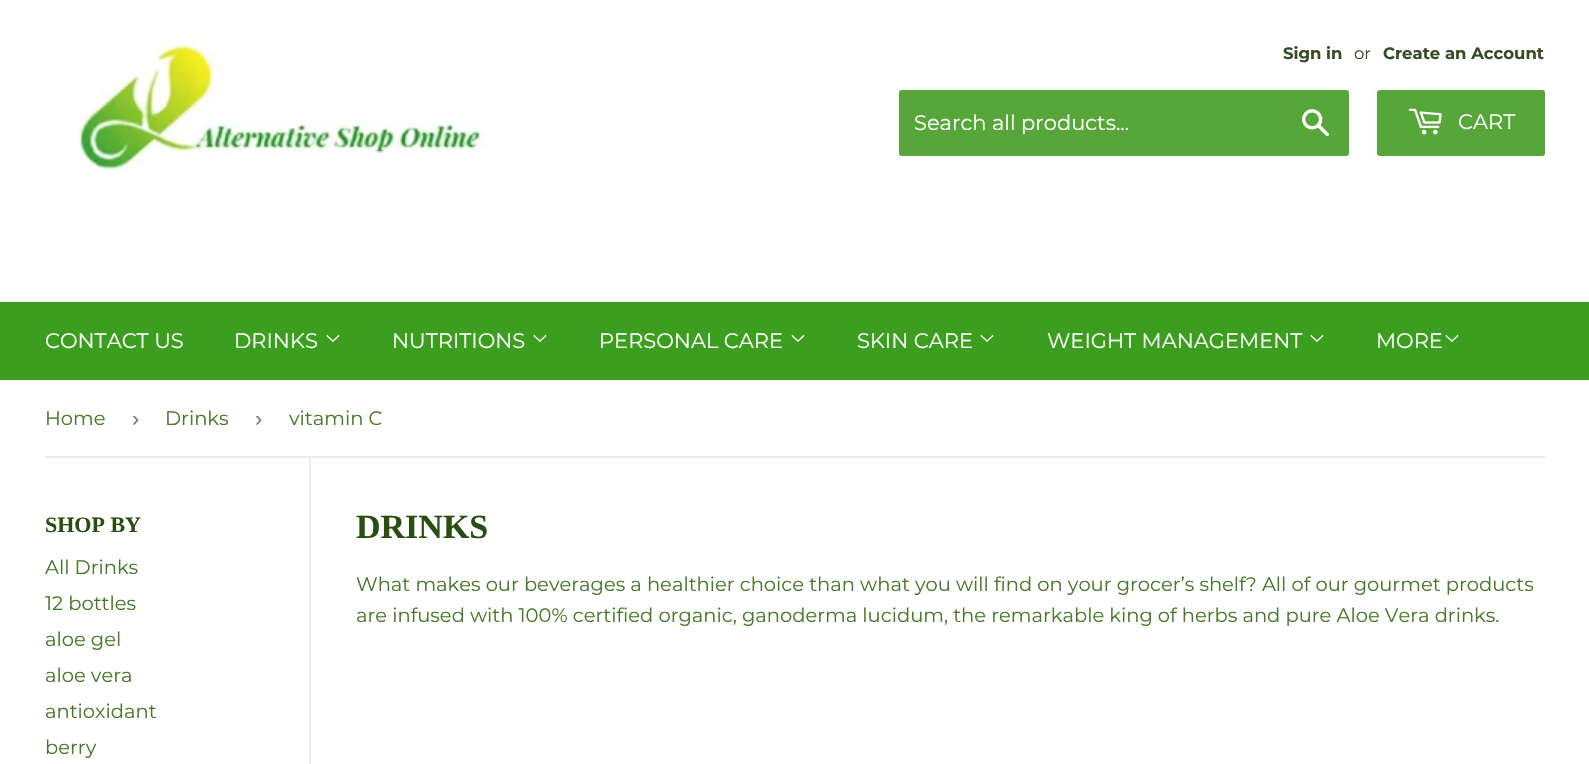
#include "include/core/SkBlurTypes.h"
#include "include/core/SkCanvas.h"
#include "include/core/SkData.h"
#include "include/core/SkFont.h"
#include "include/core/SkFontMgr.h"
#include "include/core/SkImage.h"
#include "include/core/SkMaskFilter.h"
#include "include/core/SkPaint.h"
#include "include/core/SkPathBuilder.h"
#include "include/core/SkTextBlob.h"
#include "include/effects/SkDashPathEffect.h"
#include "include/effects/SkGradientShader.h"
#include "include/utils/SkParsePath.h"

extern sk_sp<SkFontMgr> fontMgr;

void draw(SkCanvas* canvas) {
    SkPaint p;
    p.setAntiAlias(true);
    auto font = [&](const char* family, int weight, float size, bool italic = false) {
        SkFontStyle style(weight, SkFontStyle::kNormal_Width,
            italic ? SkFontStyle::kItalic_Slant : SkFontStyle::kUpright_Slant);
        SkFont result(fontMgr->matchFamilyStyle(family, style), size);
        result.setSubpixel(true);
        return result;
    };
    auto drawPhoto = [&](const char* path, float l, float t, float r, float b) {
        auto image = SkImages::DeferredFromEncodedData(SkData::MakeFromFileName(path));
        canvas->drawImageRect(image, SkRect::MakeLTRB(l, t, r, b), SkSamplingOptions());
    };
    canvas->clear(0xFFFFFFFF);
    drawPhoto("media/1.png", 79, 41, 487, 174);
    auto font1 = font("Montserrat", 700, 16.5f);
    p.setColor(0xFF354C26);
    canvas->drawString("Sign in", 1283, 59, font1, p);
    auto font2 = font("Montserrat", 400, 16.5f);
    canvas->drawString("or", 1354, 59, font2, p);
    canvas->drawString("Create an Account", 1383, 59, font1, p);
    p.setColor(0xFF56A63A);
    canvas->drawRoundRect(SkRect::MakeLTRB(899, 90, 1349, 156), 3, 3, p);
    auto font3 = font("Montserrat", 400, 21);
    p.setColor(0xFFFFFFFF);
    canvas->drawString("Search all products...", 914, 130, font3, p);
    drawPhoto("media/2.png", 1302, 109, 1329, 137);
    p.setColor(0xFF56A63A);
    canvas->drawRoundRect(SkRect::MakeLTRB(1377, 90, 1545, 156), 3, 3, p);
    drawPhoto("media/3.png", 1408, 108, 1442, 135);
    p.setColor(0xFFFFFFFF);
    canvas->drawString("CART", 1458, 129, font3, p);
    p.setColor(0xFF3C9E1E);
    canvas->drawRect(SkRect::MakeLTRB(0, 302, 1589, 380), p);
    p.setColor(0xFFFFFFFF);
    canvas->drawString("CONTACT US", 45, 348, font3, p);
    canvas->drawString("DRINKS", 234, 348, font3, p);
    drawPhoto("media/4.png", 326, 335, 340, 342);
    canvas->drawString("NUTRITIONS", 392, 348, font3, p);
    drawPhoto("media/4.png", 533, 335, 547, 342);
    canvas->drawString("PERSONAL CARE", 599, 348, font3, p);
    drawPhoto("media/4.png", 791, 335, 805, 342);
    canvas->drawString("SKIN CARE", 857, 348, font3, p);
    drawPhoto("media/4.png", 980, 335, 994, 342);
    canvas->drawString("WEIGHT MANAGEMENT", 1047, 348, font3, p);
    drawPhoto("media/4.png", 1310, 335, 1324, 342);
    canvas->drawString("MORE", 1376, 348, font3, p);
    drawPhoto("media/4.png", 1445, 335, 1459, 342);
    p.setColor(0xFFECECEC);
    canvas->drawRect(SkRect::MakeLTRB(45, 456, 1545, 458), p);
    auto font4 = font("Montserrat", 400, 19.5f);
    p.setColor(0xFF487829);
    canvas->drawString("Home", 45, 425, font4, p);
    auto font5 = font("Liberation Sans", 400, 22);
    p.setColor(0xFF767676);
    canvas->drawString("›", 132, 426, font5, p);
    p.setColor(0xFF487829);
    canvas->drawString("Drinks", 165, 425, font4, p);
    p.setColor(0xFF767676);
    canvas->drawString("›", 255, 426, font5, p);
    p.setColor(0xFF487829);
    canvas->drawString("vitamin C", 289, 425, font4, p);
    auto font6 = font("Liberation Serif", 700, 22);
    p.setColor(0xFF294E11);
    canvas->drawString("SHOP BY", 45, 532, font6, p);
    p.setColor(0xFF487829);
    {
        const struct { const char* s; float x, y; } items[] = {
            {"All Drinks", 45, 574},
            {"12 bottles", 45, 610},
            {"aloe gel", 45, 646},
            {"aloe vera", 45, 682},
            {"antioxidant", 45, 718},
            {"berry", 45, 754},
        };
        for (auto [s, x, y] : items) {
            canvas->drawString(s, x, y, font4, p);
        }
    }
    p.setColor(0xFFECECEC);
    canvas->drawRect(SkRect::MakeLTRB(309, 458, 311, 764), p);
    auto font7 = font("Liberation Serif", 700, 34);
    p.setColor(0xFF294E11);
    canvas->drawString("DRINKS", 356, 538, font7, p);
    p.setColor(0xFF487829);
    canvas->drawString("What makes our beverages a healthier choice than what you will find on your grocer’s shelf? All of our gourmet products", 356, 591, font4, p);
    canvas->drawString("are infused with 100% certified organic, ganoderma lucidum, the remarkable king of herbs and pure Aloe Vera drinks.", 356, 622, font4, p);
}
